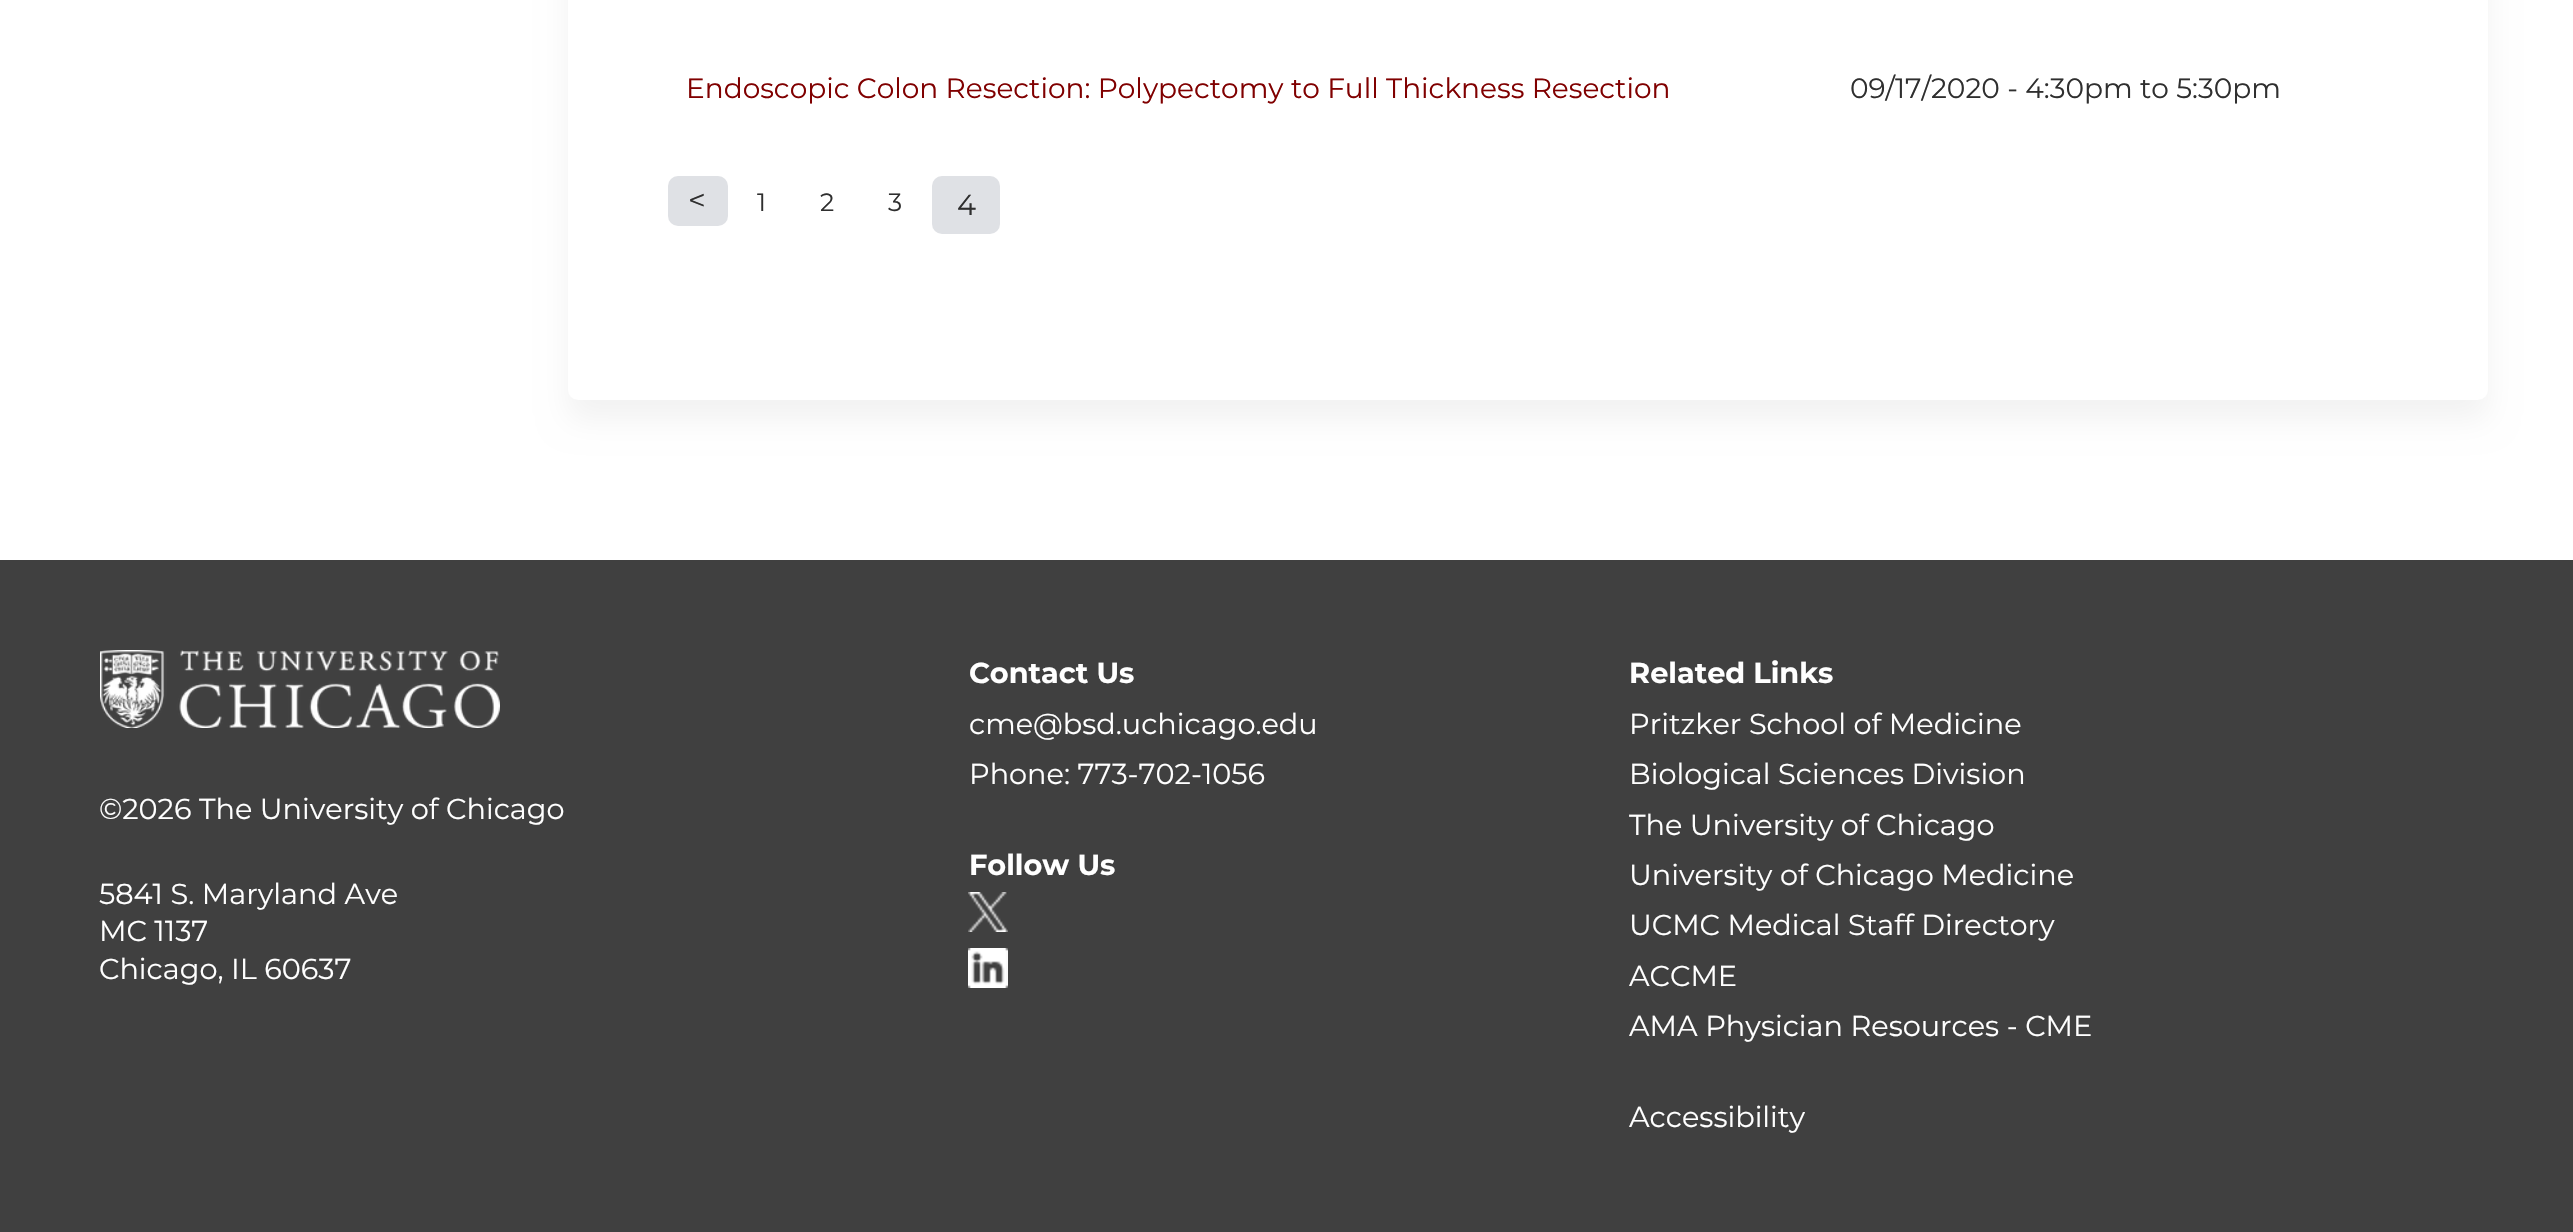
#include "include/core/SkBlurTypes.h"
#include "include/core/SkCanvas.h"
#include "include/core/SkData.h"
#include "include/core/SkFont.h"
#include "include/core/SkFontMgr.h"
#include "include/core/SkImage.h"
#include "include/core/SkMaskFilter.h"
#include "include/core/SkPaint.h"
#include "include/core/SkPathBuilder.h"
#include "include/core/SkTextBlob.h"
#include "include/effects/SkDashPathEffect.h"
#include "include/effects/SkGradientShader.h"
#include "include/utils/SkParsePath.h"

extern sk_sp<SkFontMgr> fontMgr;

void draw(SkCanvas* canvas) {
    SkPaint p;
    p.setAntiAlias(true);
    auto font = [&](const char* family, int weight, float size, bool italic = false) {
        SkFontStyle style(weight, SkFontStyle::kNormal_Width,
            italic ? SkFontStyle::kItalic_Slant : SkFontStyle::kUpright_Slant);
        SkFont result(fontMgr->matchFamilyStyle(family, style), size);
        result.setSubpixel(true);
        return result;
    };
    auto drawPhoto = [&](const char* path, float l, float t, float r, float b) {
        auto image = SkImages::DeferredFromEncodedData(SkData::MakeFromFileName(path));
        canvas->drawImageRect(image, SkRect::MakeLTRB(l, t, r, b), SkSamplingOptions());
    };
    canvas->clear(0xFFFFFFFF);
    p.setColor(0x0D000000);
    p.setMaskFilter(SkMaskFilter::MakeBlur(kNormal_SkBlurStyle, 15));
    canvas->drawRoundRect(SkRect::MakeLTRB(568, -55, 2488, 420), 10, 10, p);
    p.setMaskFilter(nullptr);
    p.setColor(0xFFFFFFFF);
    canvas->drawRoundRect(SkRect::MakeLTRB(568, -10, 2488, 400), 10, 10, p);
    auto font1 = font("Montserrat", 400, 28);
    p.setColor(0xFF800000);
    canvas->drawString("Endoscopic Colon Resection: Polypectomy to Full Thickness Resection", 686, 98, font1, p);
    p.setColor(0xFF2F2F2F);
    canvas->drawString("09/17/2020 - 4:30pm to 5:30pm", 1850, 98, font1, p);
    p.setColor(0xFFDFE1E5);
    canvas->drawRoundRect(SkRect::MakeLTRB(668, 176, 728, 226), 10, 10, p);
    auto font2 = font("Montserrat", 400, 31);
    p.setColor(0xFF2F2F2F);
    canvas->drawString("<", 688, 211, font2, p);
    auto font3 = font("Montserrat", 400, 25);
    {
        const struct { const char* s; float x, y; } items[] = {
            {"1", 757, 211},
            {"2", 820, 211},
            {"3", 888, 211},
        };
        for (auto [s, x, y] : items) {
            canvas->drawString(s, x, y, font3, p);
        }
    }
    p.setColor(0xFFDFE1E5);
    canvas->drawRoundRect(SkRect::MakeLTRB(932, 176, 1000, 234), 10, 10, p);
    auto font4 = font("Montserrat", 400, 28.75f);
    p.setColor(0xFF2F2F2F);
    canvas->drawString("4", 957, 215, font4, p);
    p.setColor(0xFF404040);
    canvas->drawRect(SkRect::MakeLTRB(0, 560, 2573, 1232), p);
    drawPhoto("media/1.png", 100, 650, 500, 728);
    p.setColor(0xFFFFFFFF);
    {
        const struct { const char* s; float x, y; } items[] = {
            {"©2026 The University of Chicago", 99, 819},
            {"5841 S. Maryland Ave", 99, 904},
            {"MC 1137", 99, 941},
            {"Chicago, IL 60637", 99, 979},
        };
        for (auto [s, x, y] : items) {
            canvas->drawString(s, x, y, font4, p);
        }
    }
    auto font5 = font("Montserrat", 700, 28.75f);
    canvas->drawString("Contact Us", 969, 683, font5, p);
    canvas->drawString("cme@bsd.uchicago.edu", 969, 734, font4, p);
    canvas->drawString("Phone: 773-702-1056", 969, 784, font4, p);
    canvas->drawString("Follow Us", 969, 875, font5, p);
    drawPhoto("media/2.png", 968, 892, 1008, 932);
    drawPhoto("media/3.png", 968, 948, 1008, 988);
    canvas->drawString("Related Links", 1629, 683, font5, p);
    {
        const struct { const char* s; float x, y; } items[] = {
            {"Pritzker School of Medicine", 1629, 734},
            {"Biological Sciences Division", 1629, 784},
            {"The University of Chicago", 1629, 835},
            {"University of Chicago Medicine", 1629, 885},
            {"UCMC Medical Staff Directory", 1629, 935},
            {"ACCME", 1629, 986},
            {"AMA Physician Resources - CME", 1629, 1036},
            {"Accessibility", 1629, 1127},
        };
        for (auto [s, x, y] : items) {
            canvas->drawString(s, x, y, font4, p);
        }
    }
}
